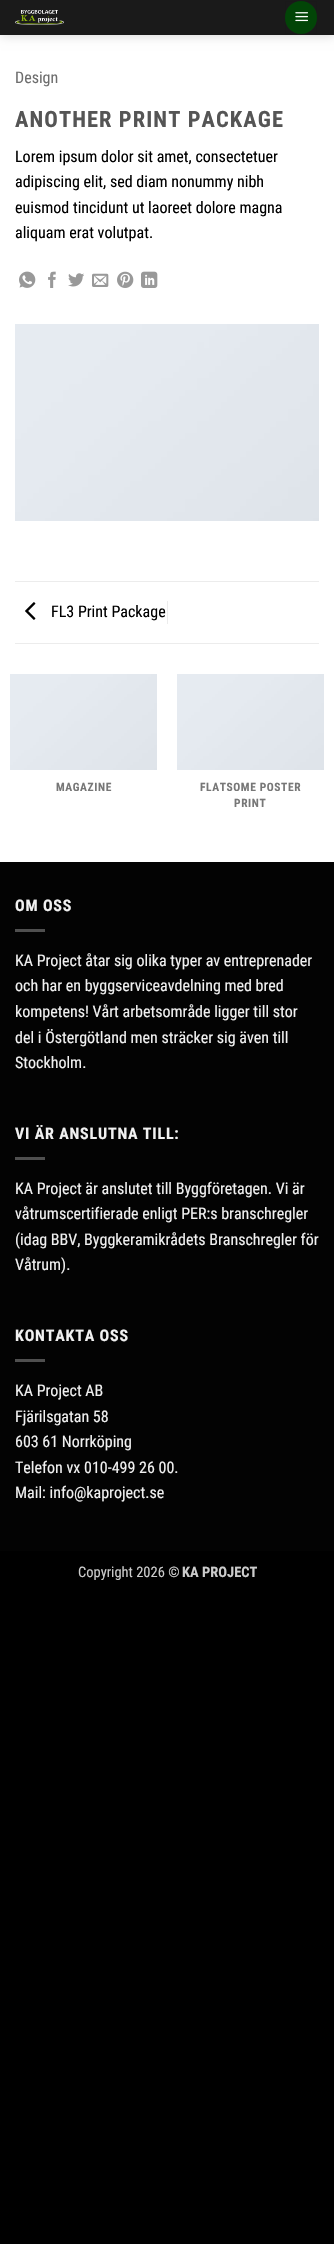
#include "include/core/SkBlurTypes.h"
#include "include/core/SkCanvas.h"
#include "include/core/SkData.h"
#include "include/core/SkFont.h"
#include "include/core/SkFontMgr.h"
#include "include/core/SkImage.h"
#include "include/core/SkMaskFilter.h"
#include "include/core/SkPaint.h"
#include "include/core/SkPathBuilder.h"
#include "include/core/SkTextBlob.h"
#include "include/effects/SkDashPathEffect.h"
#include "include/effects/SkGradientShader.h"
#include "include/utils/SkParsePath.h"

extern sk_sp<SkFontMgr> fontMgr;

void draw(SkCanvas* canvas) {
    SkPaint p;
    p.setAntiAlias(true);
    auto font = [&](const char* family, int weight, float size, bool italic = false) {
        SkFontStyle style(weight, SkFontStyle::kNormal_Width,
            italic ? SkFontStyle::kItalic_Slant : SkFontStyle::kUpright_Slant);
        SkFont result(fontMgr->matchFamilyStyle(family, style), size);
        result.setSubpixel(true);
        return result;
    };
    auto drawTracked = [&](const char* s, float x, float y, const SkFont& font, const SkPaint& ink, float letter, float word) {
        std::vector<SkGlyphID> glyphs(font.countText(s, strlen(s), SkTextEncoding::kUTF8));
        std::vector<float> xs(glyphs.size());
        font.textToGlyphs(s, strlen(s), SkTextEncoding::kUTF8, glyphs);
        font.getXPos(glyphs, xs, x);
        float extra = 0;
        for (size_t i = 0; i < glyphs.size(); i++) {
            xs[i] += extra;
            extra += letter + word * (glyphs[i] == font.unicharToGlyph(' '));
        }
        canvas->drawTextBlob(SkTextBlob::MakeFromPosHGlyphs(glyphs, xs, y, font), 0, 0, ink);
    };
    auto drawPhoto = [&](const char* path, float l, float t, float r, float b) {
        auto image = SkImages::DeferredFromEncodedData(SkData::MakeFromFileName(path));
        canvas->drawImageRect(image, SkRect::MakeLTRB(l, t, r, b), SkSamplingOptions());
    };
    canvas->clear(0xFF000000);
    p.setColor(0xFFFFFFFF);
    canvas->drawRect(SkRect::MakeLTRB(0, 35, 334, 862), p);
    p.setColor(0x26000000);
    p.setMaskFilter(SkMaskFilter::MakeBlur(kNormal_SkBlurStyle, 5));
    canvas->drawRect(SkRect::MakeLTRB(1, 1, 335, 36), p);
    p.setMaskFilter(nullptr);
    p.setColor(0xFF1A1A1A);
    canvas->drawRect(SkRect::MakeLTRB(0, 0, 334, 35), p);
    drawPhoto("media/1.png", 15, 10, 64, 25);
    p.setColor(0xFF024507);
    canvas->drawRoundRect(SkRect::MakeLTRB(285, 1, 317, 34), 16, 16, p);
    p.setStyle(SkPaint::kStroke_Style);
    p.setStrokeWidth(1);
    p.setColor(0x0D000000);
    canvas->drawRect(SkRect::MakeLTRB(285.5f, 1.5f, 316.5f, 33.5f), p);
    drawPhoto("media/2.png", 295, 12, 308, 22);
    auto font1 = font("Roboto Condensed", 400, 16);
    p.setStyle(SkPaint::kFill_Style);
    p.setColor(0xFF6E6E6E);
    canvas->drawString("Design", 15, 83, font1, p);
    auto font2 = font("Roboto Condensed", 700, 22.4f);
    p.setColor(0xFF555555);
    drawTracked("ANOTHER PRINT PACKAGE", 15, 127, font2, p, 1.1f, 0);
    p.setColor(0xFF000000);
    {
        const struct { const char* s; float x, y; } items[] = {
            {"Lorem ipsum dolor sit amet, consectetuer", 15, 162},
            {"adipiscing elit, sed diam nonummy nibh", 15, 187},
            {"euismod tincidunt ut laoreet dolore magna", 15, 213},
            {"aliquam erat volutpat.", 15, 238},
        };
        for (auto [s, x, y] : items) {
            canvas->drawString(s, x, y, font1, p);
        }
    }
    drawPhoto("media/3.png", 19, 271, 36, 288);
    drawPhoto("media/4.png", 48, 271, 56, 288);
    drawPhoto("media/5.png", 68, 273, 84, 287);
    drawPhoto("media/6.png", 92, 273, 109, 287);
    drawPhoto("media/7.png", 117, 271, 134, 288);
    drawPhoto("media/8.png", 141, 271, 158, 288);
    drawPhoto("media/9.png", 15, 324, 319, 521);
    p.setColor(0xFFECECEC);
    canvas->drawRect(SkRect::MakeLTRB(15, 581, 319, 582), p);
    canvas->drawRect(SkRect::MakeLTRB(15, 643, 319, 644), p);
    drawPhoto("media/10.png", 25, 602, 36, 620);
    p.setColor(0xFF000000);
    canvas->drawString("FL3 Print Package", 51, 617, font1, p);
    p.setColor(0xFFECECEC);
    canvas->drawRect(SkRect::MakeLTRB(167, 601, 168, 624), p);
    drawPhoto("media/11.png", 10, 674, 157, 770);
    auto font3 = font("Roboto Condensed", 700, 11.5f);
    p.setColor(0xFF777777);
    drawTracked("MAGAZINE", 56, 791, font3, p, 0.6f, 0);
    drawPhoto("media/11.png", 177, 674, 324, 770);
    drawTracked("FLATSOME POSTER", 200, 791, font3, p, 0.6f, 0);
    drawTracked("PRINT", 234, 807, font3, p, 0.6f, 0);
    p.setColor(0xFF030303);
    canvas->drawRect(SkRect::MakeLTRB(0, 862, 334, 1551), p);
    auto font4 = font("Roboto Condensed", 700, 16);
    p.setColor(0xFFF1F1F1);
    drawTracked("OM OSS", 15, 911, font4, p, 0.8f, 0);
    p.setColor(0xFF4F4F4F);
    canvas->drawRect(SkRect::MakeLTRB(15, 929, 45, 932), p);
    p.setColor(0xFFF1F1F1);
    {
        const struct { const char* s; float x, y; } items[] = {
            {"KA Project åtar sig olika typer av entreprenader", 15, 966},
            {"och har en byggserviceavdelning med bred", 15, 991},
            {"kompetens! Vårt arbetsområde ligger till stor", 15, 1017},
            {"del i Östergötland men sträcker sig även till", 15, 1043},
            {"Stockholm.", 15, 1068},
        };
        for (auto [s, x, y] : items) {
            canvas->drawString(s, x, y, font1, p);
        }
    }
    drawTracked("VI ÄR ANSLUTNA TILL:", 15, 1139, font4, p, 0.8f, 0);
    p.setColor(0xFF4F4F4F);
    canvas->drawRect(SkRect::MakeLTRB(15, 1157, 45, 1160), p);
    p.setColor(0xFFF1F1F1);
    {
        const struct { const char* s; float x, y; } items[] = {
            {"KA Project är anslutet till Byggföretagen. Vi är", 15, 1194},
            {"våtrumscertifierade enligt PER:s branschregler", 15, 1219},
            {"(idag BBV, Byggkeramikrådets Branschregler för", 15, 1245},
            {"Våtrum).", 15, 1270},
        };
        for (auto [s, x, y] : items) {
            canvas->drawString(s, x, y, font1, p);
        }
    }
    drawTracked("KONTAKTA OSS", 15, 1341, font4, p, 0.8f, 0);
    p.setColor(0xFF4F4F4F);
    canvas->drawRect(SkRect::MakeLTRB(15, 1359, 45, 1362), p);
    p.setColor(0xFFF1F1F1);
    {
        const struct { const char* s; float x, y; } items[] = {
            {"KA Project AB", 15, 1396},
            {"Fjärilsgatan 58", 15, 1422},
            {"603 61 Norrköping", 15, 1447},
            {"Telefon vx 010-499 26 00.", 15, 1473},
            {"Mail: info@kaproject.se", 15, 1498},
        };
        for (auto [s, x, y] : items) {
            canvas->drawString(s, x, y, font1, p);
        }
    }
    auto font5 = font("Roboto Condensed", 400, 14.5f);
    p.setColor(0xFFCCCCCC);
    canvas->drawString("Copyright 2026 ©", 78, 1577, font5, p);
    auto font6 = font("Roboto Condensed", 700, 14.5f);
    canvas->drawString("KA PROJECT", 182, 1577, font6, p);
}
